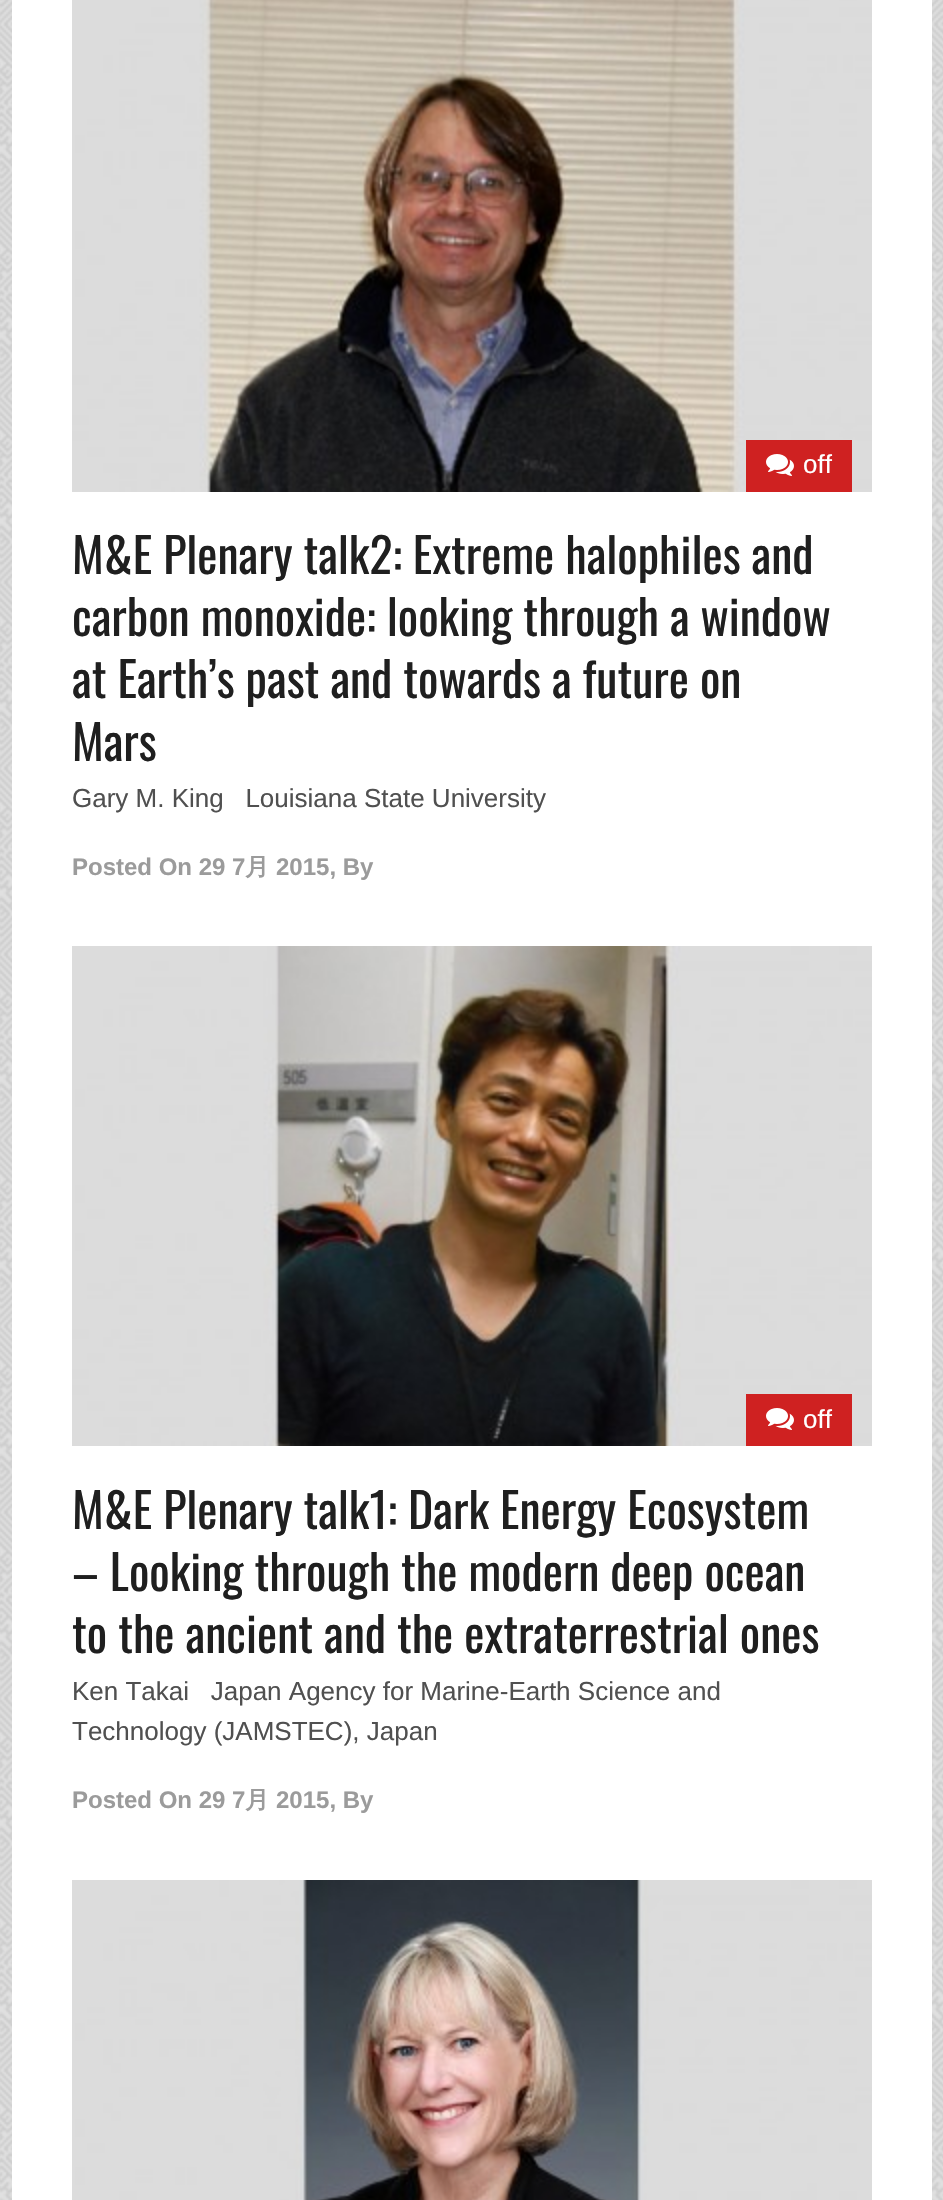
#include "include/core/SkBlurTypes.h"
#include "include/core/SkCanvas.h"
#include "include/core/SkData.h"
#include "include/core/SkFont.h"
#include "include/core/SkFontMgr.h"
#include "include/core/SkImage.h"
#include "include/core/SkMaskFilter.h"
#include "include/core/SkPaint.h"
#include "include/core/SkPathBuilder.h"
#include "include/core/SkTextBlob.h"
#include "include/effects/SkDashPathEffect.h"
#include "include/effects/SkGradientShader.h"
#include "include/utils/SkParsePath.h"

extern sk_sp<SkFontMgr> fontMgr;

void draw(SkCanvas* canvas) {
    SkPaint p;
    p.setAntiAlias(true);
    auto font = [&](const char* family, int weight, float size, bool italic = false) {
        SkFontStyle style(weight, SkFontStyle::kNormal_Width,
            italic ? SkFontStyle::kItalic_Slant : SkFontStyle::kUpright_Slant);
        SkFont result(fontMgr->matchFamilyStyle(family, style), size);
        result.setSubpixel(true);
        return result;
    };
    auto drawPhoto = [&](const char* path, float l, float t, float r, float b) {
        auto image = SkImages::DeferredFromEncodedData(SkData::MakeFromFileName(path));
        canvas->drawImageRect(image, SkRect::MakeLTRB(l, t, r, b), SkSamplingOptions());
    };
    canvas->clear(0xFFFFFFFF);
    drawPhoto("media/1.png", 0, 0, 943, 2200);
    p.setColor(0xFFFFFFFF);
    canvas->drawRect(SkRect::MakeLTRB(12, 0, 932, 2200), p);
    drawPhoto("media/2.png", 72, 0, 872, 492);
    p.setColor(0xFFCF2121);
    canvas->drawRect(SkRect::MakeLTRB(746, 440, 852, 492), p);
    drawPhoto("media/3.png", 766, 454, 794, 476);
    auto font1 = font("Liberation Sans", 400, 26);
    p.setColor(0xFFFFFFFF);
    canvas->drawString("off", 803, 473, font1, p);
    auto font2 = font("Oswald", 400, 48);
    p.setColor(0xFF1F1F1F);
    {
        const struct { const char* s; float x, y; } items[] = {
            {"M&E Plenary talk2: Extreme halophiles and", 72, 574},
            {"carbon monoxide: looking through a window", 72, 636},
            {"at Earth’s past and towards a future on", 72, 698},
            {"Mars", 72, 761},
        };
        for (auto [s, x, y] : items) {
            canvas->drawString(s, x, y, font2, p);
        }
    }
    p.setColor(0xFF505050);
    canvas->drawString("Gary M. King   Louisiana State University", 72, 807, font1, p);
    auto font3 = font("Liberation Sans", 700, 24);
    p.setColor(0xFF9B9B9B);
    canvas->drawString("Posted On 29 7", 72, 875, font3, p);
    auto font4 = font("WenQuanYi Zen Hei", 700, 24);
    canvas->drawString("月", 245, 875, font4, p);
    canvas->drawString("2015, By", 276, 875, font3, p);
    drawPhoto("media/4.png", 72, 946, 872, 1446);
    p.setColor(0xFFCF2121);
    canvas->drawRect(SkRect::MakeLTRB(746, 1394, 852, 1446), p);
    drawPhoto("media/3.png", 766, 1408, 794, 1430);
    p.setColor(0xFFFFFFFF);
    canvas->drawString("off", 803, 1428, font1, p);
    p.setColor(0xFF1F1F1F);
    {
        const struct { const char* s; float x, y; } items[] = {
            {"M&E Plenary talk1: Dark Energy Ecosystem", 72, 1529},
            {"– Looking through the modern deep ocean", 72, 1591},
            {"to the ancient and the extraterrestrial ones", 72, 1653},
        };
        for (auto [s, x, y] : items) {
            canvas->drawString(s, x, y, font2, p);
        }
    }
    p.setColor(0xFF505050);
    canvas->drawString("Ken Takai   Japan Agency for Marine-Earth Science and", 72, 1700, font1, p);
    canvas->drawString("Technology (JAMSTEC), Japan", 72, 1740, font1, p);
    p.setColor(0xFF9B9B9B);
    canvas->drawString("Posted On 29 7", 72, 1808, font3, p);
    canvas->drawString("月", 245, 1808, font4, p);
    canvas->drawString("2015, By", 276, 1808, font3, p);
    drawPhoto("media/5.png", 72, 1880, 872, 2200);
}
